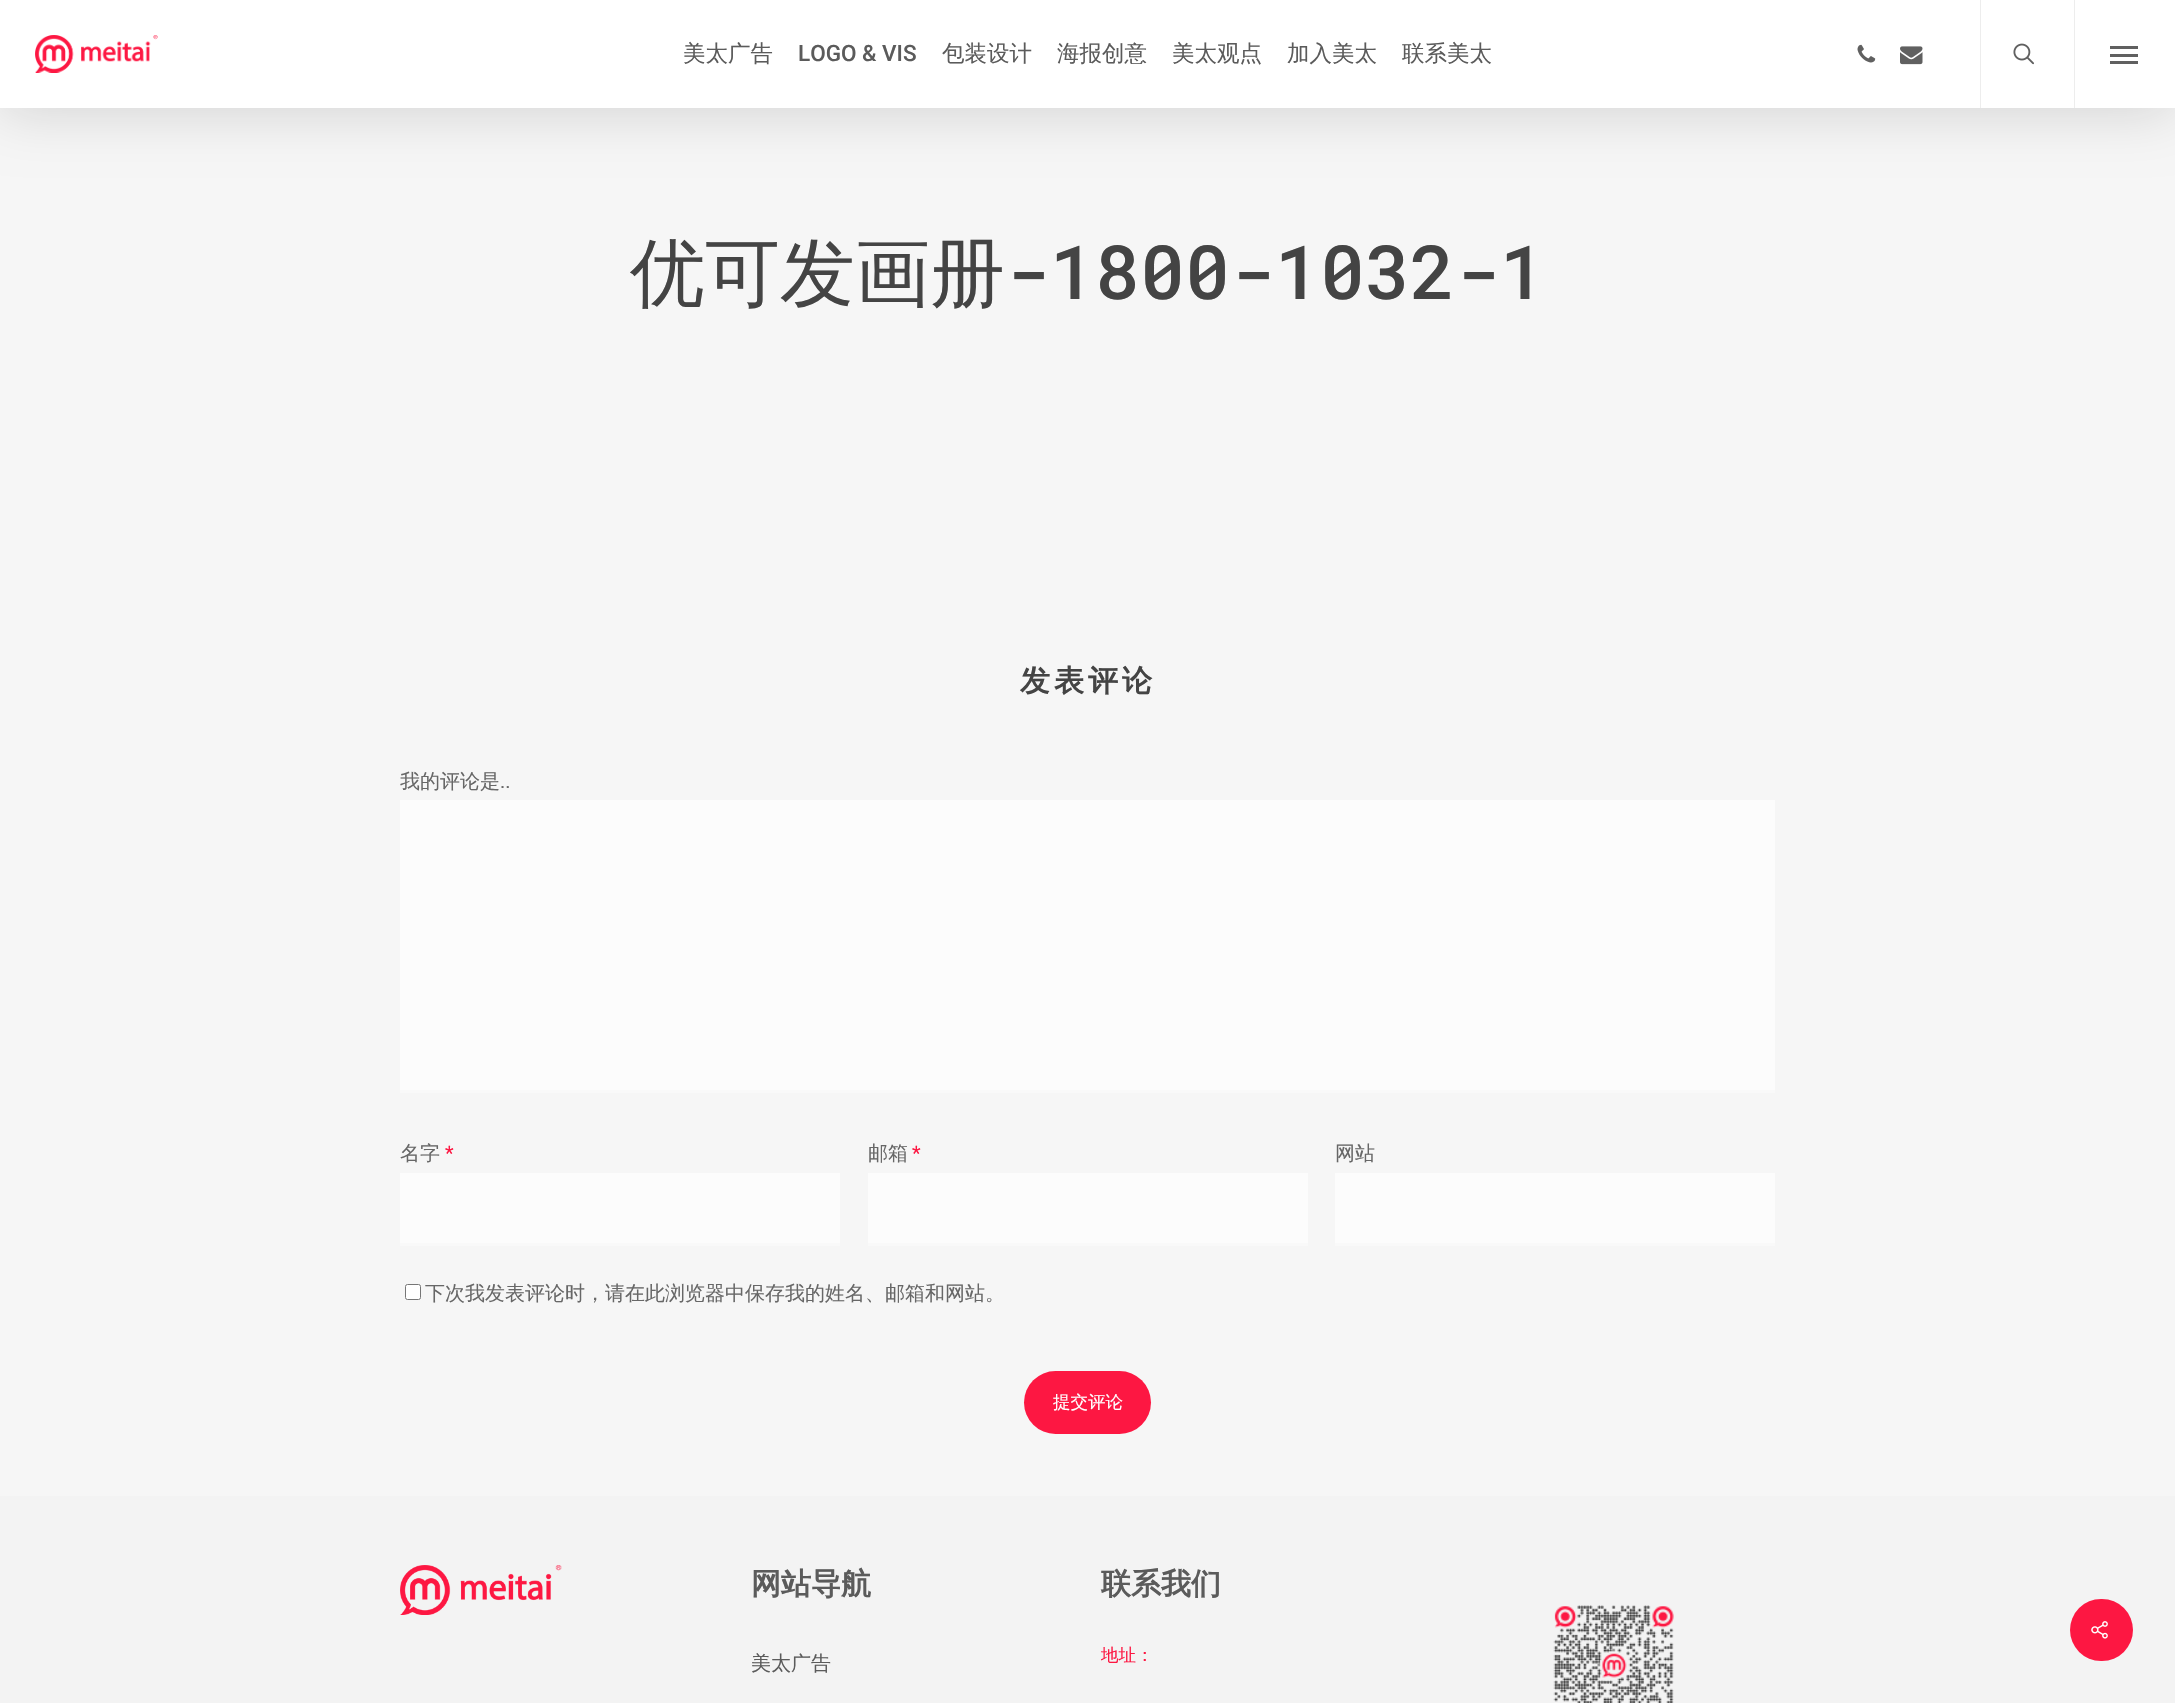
#include "include/core/SkBlurTypes.h"
#include "include/core/SkCanvas.h"
#include "include/core/SkData.h"
#include "include/core/SkFont.h"
#include "include/core/SkFontMgr.h"
#include "include/core/SkImage.h"
#include "include/core/SkMaskFilter.h"
#include "include/core/SkPaint.h"
#include "include/core/SkPathBuilder.h"
#include "include/core/SkTextBlob.h"
#include "include/effects/SkDashPathEffect.h"
#include "include/effects/SkGradientShader.h"
#include "include/utils/SkParsePath.h"

extern sk_sp<SkFontMgr> fontMgr;

void draw(SkCanvas* canvas) {
    SkPaint p;
    p.setAntiAlias(true);
    auto font = [&](const char* family, int weight, float size, bool italic = false) {
        SkFontStyle style(weight, SkFontStyle::kNormal_Width,
            italic ? SkFontStyle::kItalic_Slant : SkFontStyle::kUpright_Slant);
        SkFont result(fontMgr->matchFamilyStyle(family, style), size);
        result.setSubpixel(true);
        return result;
    };
    auto drawTracked = [&](const char* s, float x, float y, const SkFont& font, const SkPaint& ink, float letter, float word) {
        std::vector<SkGlyphID> glyphs(font.countText(s, strlen(s), SkTextEncoding::kUTF8));
        std::vector<float> xs(glyphs.size());
        font.textToGlyphs(s, strlen(s), SkTextEncoding::kUTF8, glyphs);
        font.getXPos(glyphs, xs, x);
        float extra = 0;
        for (size_t i = 0; i < glyphs.size(); i++) {
            xs[i] += extra;
            extra += letter + word * (glyphs[i] == font.unicharToGlyph(' '));
        }
        canvas->drawTextBlob(SkTextBlob::MakeFromPosHGlyphs(glyphs, xs, y, font), 0, 0, ink);
    };
    auto drawPhoto = [&](const char* path, float l, float t, float r, float b) {
        auto image = SkImages::DeferredFromEncodedData(SkData::MakeFromFileName(path));
        canvas->drawImageRect(image, SkRect::MakeLTRB(l, t, r, b), SkSamplingOptions());
    };
    canvas->clear(0xFFFFFFFF);
    p.setColor(0xFFF6F6F6);
    canvas->drawRect(SkRect::MakeLTRB(0, 108, 2175, 1496), p);
    canvas->save();
    canvas->clipPath(SkPathBuilder(SkPathFillType::kEvenOdd).moveTo(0, 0).lineTo(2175, 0).lineTo(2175, 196).lineTo(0, 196).close().moveTo(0, 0).lineTo(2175, 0).lineTo(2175, 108).lineTo(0, 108).close().detach(), true);
    p.setColor(0x26000000);
    p.setMaskFilter(SkMaskFilter::MakeBlur(kNormal_SkBlurStyle, 28));
    canvas->drawRect(SkRect::MakeLTRB(0, 4, 2175, 111), p);
    p.setMaskFilter(nullptr);
    canvas->restore();
    p.setColor(0xE6FFFFFF);
    canvas->drawRect(SkRect::MakeLTRB(0, 107, 2175, 108), p);
    drawPhoto("media/1.png", 35, 35, 158, 73);
    auto font1 = font("WenQuanYi Zen Hei", 500, 22.5f);
    p.setColor(0xFF5B5B5B);
    canvas->drawString("美太广告", 683, 61, font1, p);
    auto font2 = font("Roboto", 500, 22.5f);
    canvas->drawString("LOGO & VIS", 798, 61, font2, p);
    {
        const struct { const char* s; float x, y; } items[] = {
            {"包装设计", 942, 61},
            {"海报创意", 1057, 61},
            {"美太观点", 1172, 61},
            {"加入美太", 1287, 61},
            {"联系美太", 1402, 61},
        };
        for (auto [s, x, y] : items) {
            canvas->drawString(s, x, y, font1, p);
        }
    }
    drawPhoto("media/2.png", 1857, 44, 1876, 63);
    drawPhoto("media/3.png", 1900, 46, 1923, 65);
    p.setColor(0xFFEDEDED);
    canvas->drawRect(SkRect::MakeLTRB(1980, 0, 1981, 108), p);
    drawPhoto("media/4.png", 2013, 43, 2034, 65);
    {
        const struct { float l, t, r, b; SkColor color; } items[] = {
            {2074, 0, 2075, 108, 0xFFEDEDED},
            {2110, 46, 2138, 49, 0xFF606060},
            {2110, 61, 2138, 64, 0xFF606060},
            {2110, 54, 2138, 57, 0xFF606060},
        };
        for (auto [l, t, r, b, color] : items) {
            p.setColor(color);
            canvas->drawRect(SkRect::MakeLTRB(l, t, r, b), p);
        }
    }
    auto font3 = font("WenQuanYi Zen Hei", 500, 75);
    p.setColor(0xFF444444);
    canvas->drawString("优可发画册", 630, 299, font3, p);
    auto font4 = font("Roboto Mono", 500, 75);
    canvas->drawString("-1800-1032-1", 1005, 299, font4, p);
    auto font5 = font("WenQuanYi Zen Hei", 700, 30);
    drawTracked("发表评论", 1020, 691, font5, p, 4, 0);
    auto font6 = font("WenQuanYi Zen Hei", 500, 20);
    p.setColor(0xFF676767);
    canvas->drawString("我的评论是", 400, 788, font6, p);
    auto font7 = font("Roboto", 400, 20);
    canvas->drawString("..", 500, 788, font7, p);
    p.setColor(0xFFFCFCFC);
    canvas->drawRect(SkRect::MakeLTRB(400, 800, 1775, 1090), p);
    p.setColor(0xFFF9F9F9);
    canvas->drawRect(SkRect::MakeLTRB(400, 1090, 1775, 1093), p);
    p.setColor(0xFF676767);
    canvas->drawString("名字", 400, 1160, font6, p);
    p.setColor(0xFFFD1742);
    canvas->drawString("*", 445, 1160, font7, p);
    p.setColor(0xFFFCFCFC);
    canvas->drawRect(SkRect::MakeLTRB(400, 1173, 840, 1243), p);
    p.setColor(0xFFF9F9F9);
    canvas->drawRect(SkRect::MakeLTRB(400, 1243, 840, 1246), p);
    p.setColor(0xFF676767);
    canvas->drawString("邮箱", 868, 1160, font6, p);
    p.setColor(0xFFFD1742);
    canvas->drawString("*", 912, 1160, font7, p);
    p.setColor(0xFFFCFCFC);
    canvas->drawRect(SkRect::MakeLTRB(868, 1173, 1308, 1243), p);
    p.setColor(0xFFF9F9F9);
    canvas->drawRect(SkRect::MakeLTRB(868, 1243, 1308, 1246), p);
    p.setColor(0xFF676767);
    canvas->drawString("网站", 1335, 1160, font6, p);
    p.setColor(0xFFFCFCFC);
    canvas->drawRect(SkRect::MakeLTRB(1335, 1173, 1775, 1243), p);
    p.setColor(0xFFF9F9F9);
    canvas->drawRect(SkRect::MakeLTRB(1335, 1243, 1775, 1246), p);
    p.setColor(0xFFFFFFFF);
    canvas->drawRoundRect(SkRect::MakeLTRB(405.5f, 1284.5f, 420.5f, 1299.5f), 2, 2, p);
    p.setStyle(SkPaint::kStroke_Style);
    p.setStrokeWidth(1);
    p.setColor(0xFF767676);
    canvas->drawRoundRect(SkRect::MakeLTRB(405.5f, 1284.5f, 420.5f, 1299.5f), 2, 2, p);
    p.setStyle(SkPaint::kFill_Style);
    p.setColor(0xFF676767);
    canvas->drawString("下次我发表评论时，请在此浏览器中保存我的姓名、邮箱和网站。", 425, 1300, font6, p);
    p.setColor(0xFFFD1742);
    canvas->drawRoundRect(SkRect::MakeLTRB(1024, 1371, 1151, 1434), 31.5f, 31.5f, p);
    auto font8 = font("WenQuanYi Zen Hei", 500, 17.5f);
    p.setColor(0xFFFFFFFF);
    canvas->drawString("提交评论", 1053, 1408, font8, p);
    p.setColor(0xFFF3F3F3);
    canvas->drawRect(SkRect::MakeLTRB(0, 1496, 2175, 1703), p);
    drawPhoto("media/5.png", 400, 1565, 562, 1615);
    p.setColor(0xFF5B5B5B);
    canvas->drawString("网站导航", 751, 1594, font5, p);
    canvas->drawString("美太广告", 751, 1670, font6, p);
    canvas->drawString("联系我们", 1101, 1594, font5, p);
    p.setColor(0xFFFD1742);
    canvas->drawString("地址：", 1101, 1661, font8, p);
    drawPhoto("media/6.png", 1553, 1605, 1674, 1703);
    canvas->drawRoundRect(SkRect::MakeLTRB(2070, 1599, 2133, 1661), 31, 31, p);
    drawPhoto("media/7.png", 2091, 1621, 2108, 1639);
}
